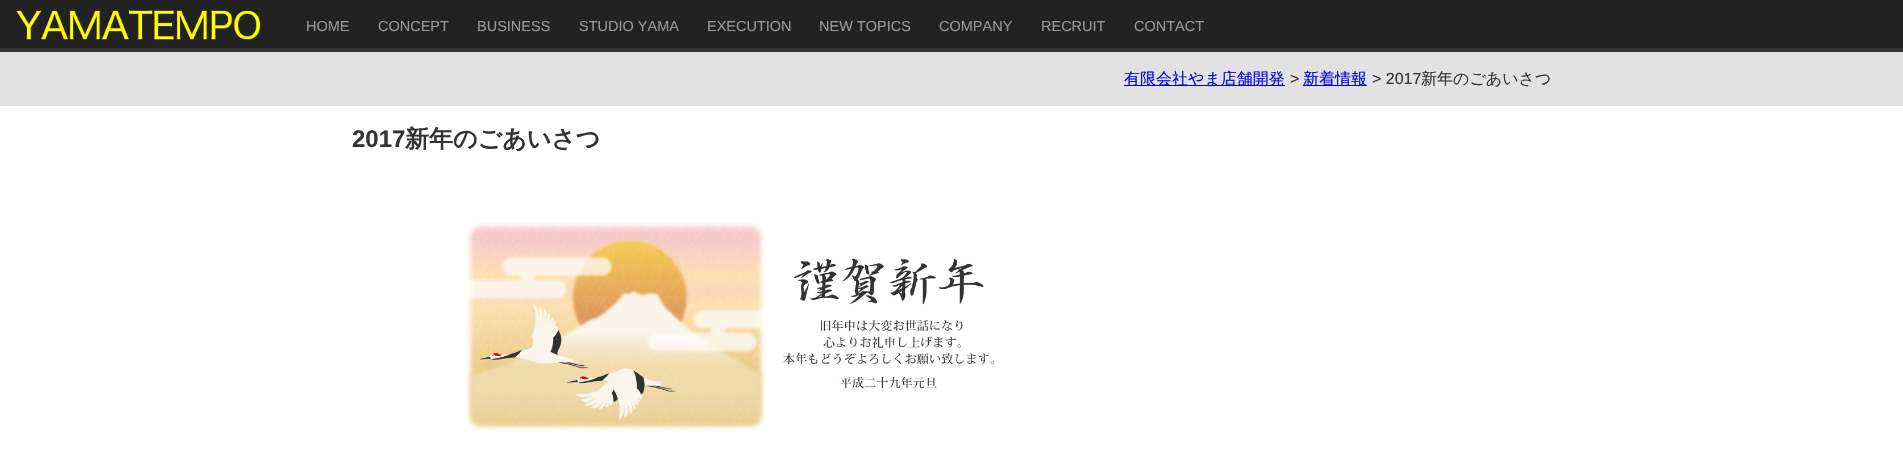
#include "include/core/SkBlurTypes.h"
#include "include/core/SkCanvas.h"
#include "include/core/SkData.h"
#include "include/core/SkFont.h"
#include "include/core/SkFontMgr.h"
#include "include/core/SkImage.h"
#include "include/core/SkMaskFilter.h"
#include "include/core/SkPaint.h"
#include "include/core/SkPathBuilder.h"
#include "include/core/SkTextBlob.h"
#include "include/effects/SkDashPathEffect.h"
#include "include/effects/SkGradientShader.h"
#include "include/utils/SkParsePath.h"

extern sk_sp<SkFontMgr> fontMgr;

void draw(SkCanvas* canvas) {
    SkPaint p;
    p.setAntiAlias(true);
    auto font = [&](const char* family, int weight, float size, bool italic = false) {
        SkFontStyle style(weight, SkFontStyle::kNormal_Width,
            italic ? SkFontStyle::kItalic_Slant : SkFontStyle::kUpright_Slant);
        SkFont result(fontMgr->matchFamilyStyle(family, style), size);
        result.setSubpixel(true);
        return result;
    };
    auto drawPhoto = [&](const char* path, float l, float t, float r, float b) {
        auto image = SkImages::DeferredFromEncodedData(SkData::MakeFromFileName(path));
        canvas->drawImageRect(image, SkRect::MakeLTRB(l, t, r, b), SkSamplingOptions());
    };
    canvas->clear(0xFF333333);
    p.setColor(0xFF222222);
    canvas->drawRect(SkRect::MakeLTRB(0, 0, 1903, 48), p);
    drawPhoto("media/1.png", 16, 10, 260, 40);
    auto font1 = font("Liberation Sans", 400, 14.5f);
    p.setColor(0xFF999999);
    {
        const struct { const char* s; float x, y; } items[] = {
            {"HOME", 306, 31},
            {"CONCEPT", 378, 31},
            {"BUSINESS", 477, 31},
            {"STUDIO YAMA", 579, 31},
            {"EXECUTION", 707, 31},
            {"NEW TOPICS", 819, 31},
            {"COMPANY", 939, 31},
            {"RECRUIT", 1041, 31},
            {"CONTACT", 1134, 31},
        };
        for (auto [s, x, y] : items) {
            canvas->drawString(s, x, y, font1, p);
        }
    }
    {
        const struct { float l, t, r, b; SkColor color; } items[] = {
            {0, 106, 1903, 449, 0xFFFFFFFF},
            {0, 52, 1903, 106, 0xFFE2E2E2},
            {1124, 85, 1285, 86, 0xFF0000EE},
        };
        for (auto [l, t, r, b, color] : items) {
            p.setColor(color);
            canvas->drawRect(SkRect::MakeLTRB(l, t, r, b), p);
        }
    }
    auto font2 = font("WenQuanYi Zen Hei", 500, 16);
    canvas->drawString("有限会社やま店舗開発", 1124, 84, font2, p);
    auto font3 = font("Liberation Sans", 400, 16);
    p.setColor(0xFF333333);
    canvas->drawString(">", 1290, 84, font3, p);
    p.setColor(0xFF0000EE);
    canvas->drawRect(SkRect::MakeLTRB(1303, 85, 1367, 86), p);
    canvas->drawString("新着情報", 1303, 84, font2, p);
    p.setColor(0xFF333333);
    canvas->drawString("> 2017", 1372, 84, font3, p);
    canvas->drawString("新年のごあいさつ", 1421, 84, font2, p);
    auto font4 = font("Liberation Sans", 700, 24);
    canvas->drawString("2017", 352, 147, font4, p);
    auto font5 = font("WenQuanYi Zen Hei", 700, 24);
    canvas->drawString("新年のごあいさつ", 405, 147, font5, p);
    drawPhoto("media/2.png", 466, 222, 994, 430);
}
